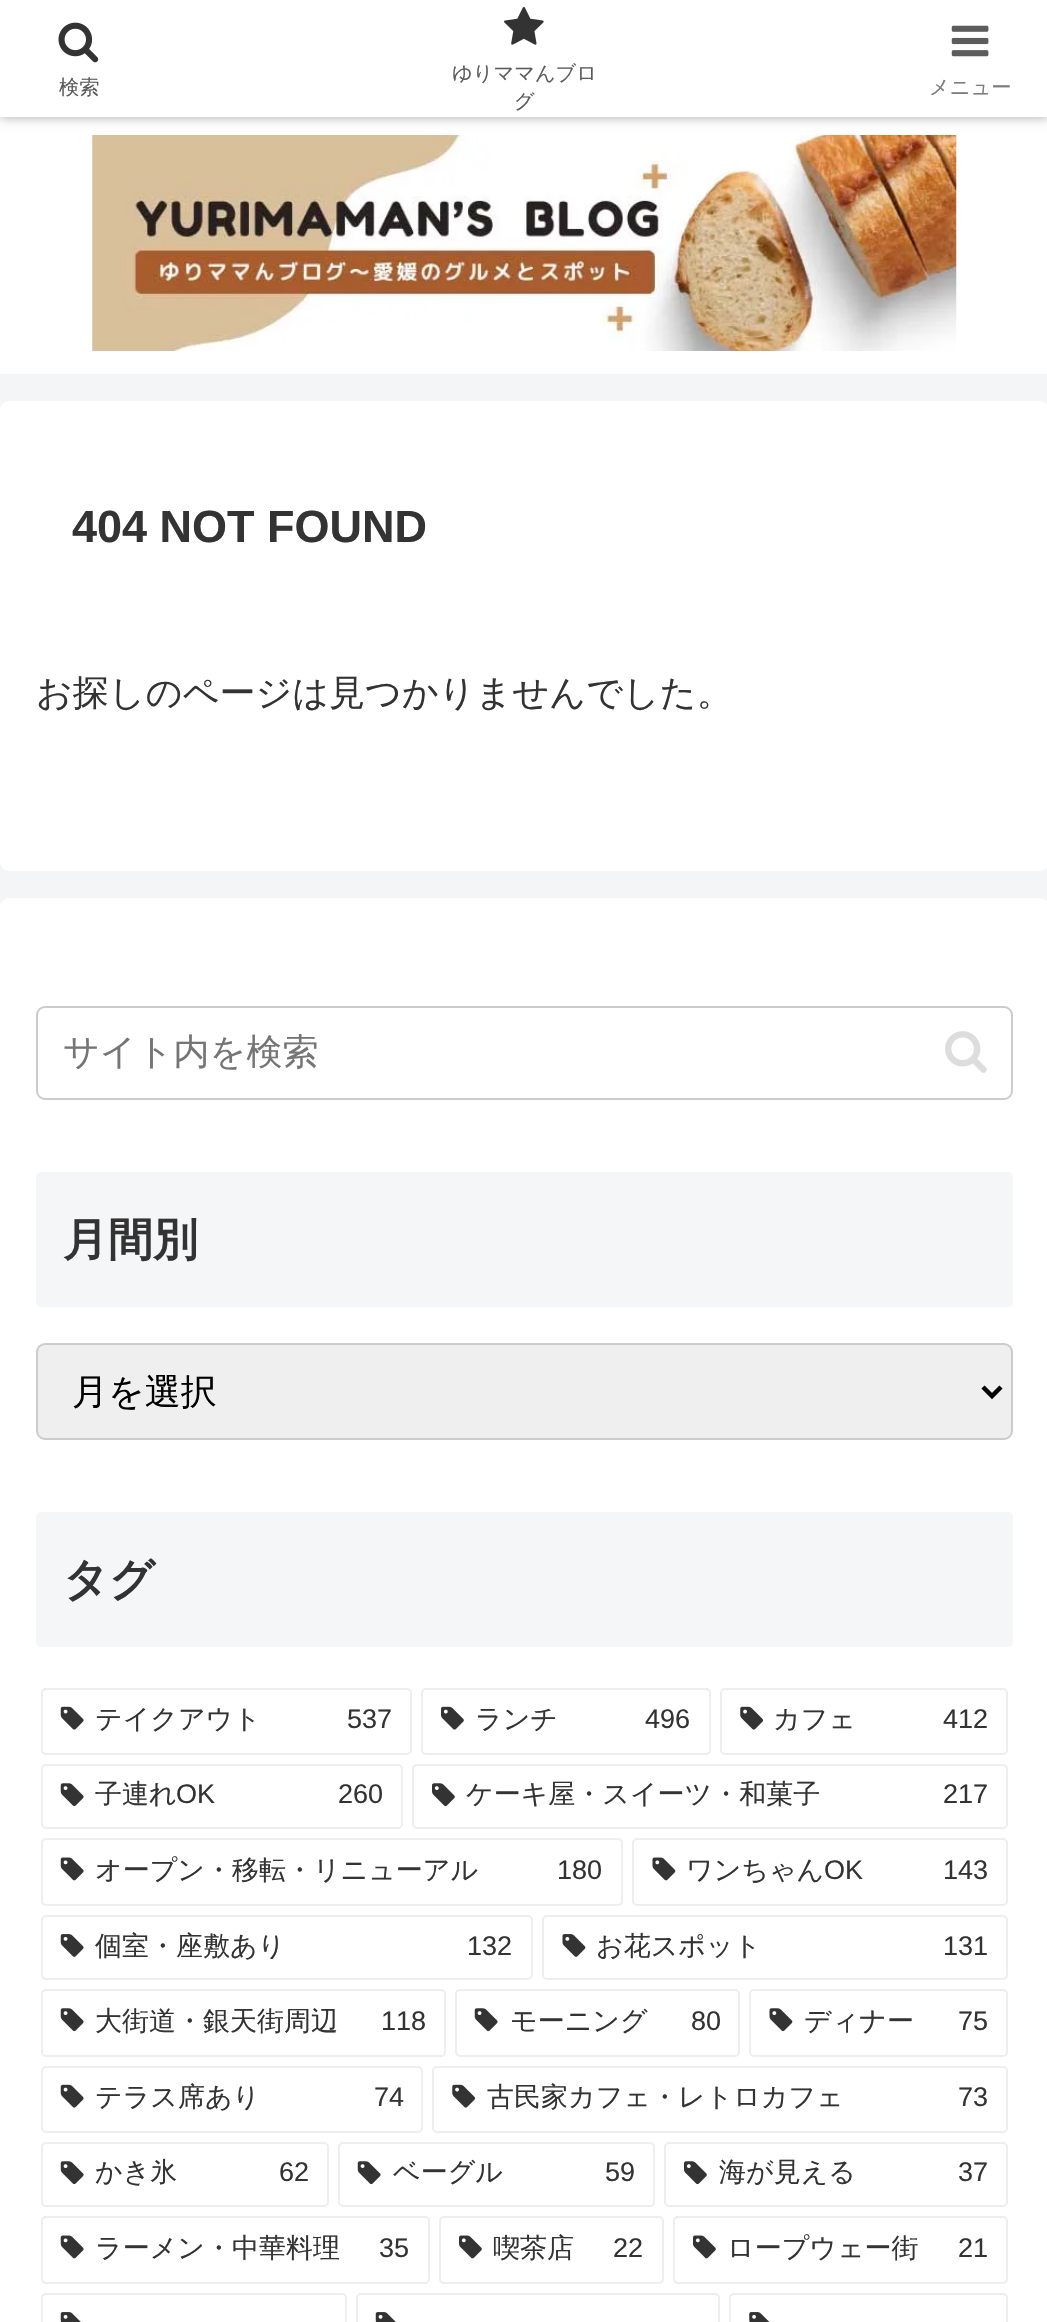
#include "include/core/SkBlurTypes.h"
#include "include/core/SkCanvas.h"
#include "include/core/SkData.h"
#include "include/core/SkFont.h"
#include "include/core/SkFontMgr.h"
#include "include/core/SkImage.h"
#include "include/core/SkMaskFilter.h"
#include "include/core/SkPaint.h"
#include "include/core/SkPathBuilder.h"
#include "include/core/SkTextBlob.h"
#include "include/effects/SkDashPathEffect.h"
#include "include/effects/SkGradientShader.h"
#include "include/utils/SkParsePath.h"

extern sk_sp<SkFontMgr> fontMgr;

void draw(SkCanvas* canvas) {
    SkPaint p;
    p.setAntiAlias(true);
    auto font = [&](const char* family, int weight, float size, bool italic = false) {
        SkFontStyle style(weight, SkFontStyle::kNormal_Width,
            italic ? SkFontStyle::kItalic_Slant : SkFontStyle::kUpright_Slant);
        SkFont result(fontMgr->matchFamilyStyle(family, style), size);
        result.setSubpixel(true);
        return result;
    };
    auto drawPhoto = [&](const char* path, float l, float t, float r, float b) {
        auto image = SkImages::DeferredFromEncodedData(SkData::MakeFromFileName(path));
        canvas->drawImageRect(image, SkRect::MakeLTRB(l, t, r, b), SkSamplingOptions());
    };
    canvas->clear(0xFFF4F5F7);
    p.setColor(0xFFFFFFFF);
    canvas->drawRect(SkRect::MakeLTRB(0, 117, 1047, 374), p);
    p.setColor(0xFFA9A9A9);
    p.setMaskFilter(SkMaskFilter::MakeBlur(kNormal_SkBlurStyle, 5.5f));
    canvas->drawRect(SkRect::MakeLTRB(0, 0, 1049, 117), p);
    p.setMaskFilter(nullptr);
    p.setColor(0xFFFFFFFF);
    canvas->drawRect(SkRect::MakeLTRB(0, 0, 1047, 117), p);
    drawPhoto("media/1.png", 58, 22, 99, 63);
    auto font1 = font("WenQuanYi Zen Hei", 500, 20.25f);
    p.setColor(0xFF5C5C5C);
    canvas->drawString("検索", 59, 94, font1, p);
    drawPhoto("media/2.png", 504, 6, 544, 45);
    canvas->drawString("ゆりママんブロ", 452, 80, font1, p);
    canvas->drawString("グ", 514, 108, font1, p);
    drawPhoto("media/3.png", 951, 25, 989, 57);
    p.setColor(0xFF7C7C7C);
    canvas->drawString("メニュー", 929, 94, font1, p);
    drawPhoto("media/4.png", 92, 135, 957, 351);
    p.setColor(0xFFFFFFFF);
    canvas->drawRoundRect(SkRect::MakeLTRB(0, 401, 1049, 871), 9, 9, p);
    auto font2 = font("Liberation Sans", 700, 45);
    p.setColor(0xFF333333);
    canvas->drawString("404 NOT FOUND", 72, 542, font2, p);
    auto font3 = font("WenQuanYi Zen Hei", 500, 36);
    canvas->drawString("お探しのページは見つかりませんでした。", 36, 705, font3, p);
    p.setColor(0xFFFFFFFF);
    canvas->drawRoundRect(SkRect::MakeLTRB(0, 898, 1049, 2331), 9, 9, p);
    p.setStyle(SkPaint::kStroke_Style);
    p.setStrokeWidth(2);
    p.setColor(0xFFCCCCCC);
    canvas->drawRoundRect(SkRect::MakeLTRB(37, 1007, 1012, 1099), 8, 8, p);
    p.setStyle(SkPaint::kFill_Style);
    p.setColor(0xFF757575);
    canvas->drawString("サイト内を検索", 63, 1064, font3, p);
    drawPhoto("media/5.png", 945, 1031, 987, 1073);
    p.setColor(0xFFF5F6F7);
    canvas->drawRoundRect(SkRect::MakeLTRB(36, 1172, 1013, 1307), 5, 5, p);
    auto font4 = font("WenQuanYi Zen Hei", 700, 45);
    p.setColor(0xFF333333);
    canvas->drawString("月間別", 63, 1255, font4, p);
    p.setColor(0xFFEFEFEF);
    canvas->drawRoundRect(SkRect::MakeLTRB(37, 1344, 1012, 1439), 8, 8, p);
    p.setStyle(SkPaint::kStroke_Style);
    p.setColor(0xFFCCCCCC);
    canvas->drawRoundRect(SkRect::MakeLTRB(37, 1344, 1012, 1439), 8, 8, p);
    p.setStrokeWidth(4.5f);
    p.setColor(0xFF000000);
    canvas->drawPath(SkPathBuilder().moveTo(983, 1387).lineTo(992, 1396).lineTo(1001, 1387).detach(), p);
    p.setStyle(SkPaint::kFill_Style);
    canvas->drawString("月を選択", 72, 1404, font3, p);
    p.setColor(0xFFF5F6F7);
    canvas->drawRoundRect(SkRect::MakeLTRB(36, 1512, 1013, 1647), 5, 5, p);
    p.setColor(0xFF333333);
    canvas->drawString("タグ", 63, 1595, font4, p);
    p.setStyle(SkPaint::kStroke_Style);
    p.setStrokeWidth(2);
    p.setColor(0xFFEEEEEE);
    canvas->drawRoundRect(SkRect::MakeLTRB(42, 1689, 411, 1754), 4, 4, p);
    drawPhoto("media/6.png", 60, 1706, 84, 1730);
    auto font5 = font("WenQuanYi Zen Hei", 500, 27);
    p.setStyle(SkPaint::kFill_Style);
    p.setColor(0xFF333333);
    canvas->drawString("テイクアウト", 95, 1728, font5, p);
    auto font6 = font("Liberation Sans", 400, 27);
    canvas->drawString("537", 347, 1728, font6, p);
    p.setStyle(SkPaint::kStroke_Style);
    p.setColor(0xFFEEEEEE);
    canvas->drawRoundRect(SkRect::MakeLTRB(422, 1689, 710, 1754), 4, 4, p);
    drawPhoto("media/7.png", 441, 1706, 464, 1730);
    p.setStyle(SkPaint::kFill_Style);
    p.setColor(0xFF333333);
    canvas->drawString("ランチ", 475, 1728, font5, p);
    canvas->drawString("496", 645, 1728, font6, p);
    p.setStyle(SkPaint::kStroke_Style);
    p.setColor(0xFFEEEEEE);
    canvas->drawRoundRect(SkRect::MakeLTRB(721, 1689, 1007, 1754), 4, 4, p);
    drawPhoto("media/8.png", 740, 1706, 764, 1730);
    p.setStyle(SkPaint::kFill_Style);
    p.setColor(0xFF333333);
    canvas->drawString("カフェ", 773, 1728, font5, p);
    canvas->drawString("412", 943, 1728, font6, p);
    p.setStyle(SkPaint::kStroke_Style);
    p.setColor(0xFFEEEEEE);
    canvas->drawRoundRect(SkRect::MakeLTRB(42, 1765, 402, 1828), 4, 4, p);
    drawPhoto("media/9.png", 60, 1783, 84, 1807);
    p.setStyle(SkPaint::kFill_Style);
    p.setColor(0xFF333333);
    canvas->drawString("子連れ", 95, 1803, font5, p);
    canvas->drawString("OK", 176, 1803, font6, p);
    canvas->drawString("260", 338, 1803, font6, p);
    p.setStyle(SkPaint::kStroke_Style);
    p.setColor(0xFFEEEEEE);
    canvas->drawRoundRect(SkRect::MakeLTRB(413, 1765, 1007, 1828), 4, 4, p);
    drawPhoto("media/10.png", 432, 1783, 455, 1807);
    p.setStyle(SkPaint::kFill_Style);
    p.setColor(0xFF333333);
    canvas->drawString("ケーキ屋・スイーツ・和菓子", 466, 1803, font5, p);
    canvas->drawString("217", 943, 1803, font6, p);
    p.setStyle(SkPaint::kStroke_Style);
    p.setColor(0xFFEEEEEE);
    canvas->drawRoundRect(SkRect::MakeLTRB(42, 1839, 622, 1905), 4, 4, p);
    drawPhoto("media/11.png", 60, 1857, 84, 1881);
    p.setStyle(SkPaint::kFill_Style);
    p.setColor(0xFF333333);
    canvas->drawString("オープン・移転・リニューアル", 95, 1879, font5, p);
    canvas->drawString("180", 557, 1879, font6, p);
    p.setStyle(SkPaint::kStroke_Style);
    p.setColor(0xFFEEEEEE);
    canvas->drawRoundRect(SkRect::MakeLTRB(633, 1839, 1007, 1905), 4, 4, p);
    drawPhoto("media/12.png", 652, 1857, 676, 1881);
    p.setStyle(SkPaint::kFill_Style);
    p.setColor(0xFF333333);
    canvas->drawString("ワンちゃん", 686, 1879, font5, p);
    canvas->drawString("OK", 824, 1879, font6, p);
    canvas->drawString("143", 943, 1879, font6, p);
    p.setStyle(SkPaint::kStroke_Style);
    p.setColor(0xFFEEEEEE);
    canvas->drawRoundRect(SkRect::MakeLTRB(42, 1916, 532, 1979), 4, 4, p);
    drawPhoto("media/13.png", 60, 1934, 84, 1957);
    p.setStyle(SkPaint::kFill_Style);
    p.setColor(0xFF333333);
    canvas->drawString("個室・座敷あり", 95, 1955, font5, p);
    canvas->drawString("132", 467, 1955, font6, p);
    p.setStyle(SkPaint::kStroke_Style);
    p.setColor(0xFFEEEEEE);
    canvas->drawRoundRect(SkRect::MakeLTRB(543, 1916, 1007, 1979), 4, 4, p);
    drawPhoto("media/14.png", 562, 1934, 586, 1957);
    p.setStyle(SkPaint::kFill_Style);
    p.setColor(0xFF333333);
    canvas->drawString("お花スポット", 596, 1955, font5, p);
    canvas->drawString("131", 943, 1955, font6, p);
    p.setStyle(SkPaint::kStroke_Style);
    p.setColor(0xFFEEEEEE);
    canvas->drawRoundRect(SkRect::MakeLTRB(42, 1990, 445, 2056), 4, 4, p);
    drawPhoto("media/9.png", 60, 2008, 84, 2032);
    p.setStyle(SkPaint::kFill_Style);
    p.setColor(0xFF333333);
    canvas->drawString("大街道・銀天街周辺", 95, 2030, font5, p);
    canvas->drawString("118", 381, 2030, font6, p);
    p.setStyle(SkPaint::kStroke_Style);
    p.setColor(0xFFEEEEEE);
    canvas->drawRoundRect(SkRect::MakeLTRB(456, 1990, 739, 2056), 4, 4, p);
    drawPhoto("media/9.png", 474, 2008, 498, 2032);
    p.setStyle(SkPaint::kFill_Style);
    p.setColor(0xFF333333);
    canvas->drawString("モーニング", 510, 2030, font5, p);
    canvas->drawString("80", 691, 2030, font6, p);
    p.setStyle(SkPaint::kStroke_Style);
    p.setColor(0xFFEEEEEE);
    canvas->drawRoundRect(SkRect::MakeLTRB(750, 1990, 1007, 2056), 4, 4, p);
    drawPhoto("media/15.png", 769, 2008, 793, 2032);
    p.setStyle(SkPaint::kFill_Style);
    p.setColor(0xFF333333);
    canvas->drawString("ディナー", 804, 2030, font5, p);
    canvas->drawString("75", 958, 2030, font6, p);
    p.setStyle(SkPaint::kStroke_Style);
    p.setColor(0xFFEEEEEE);
    canvas->drawRoundRect(SkRect::MakeLTRB(42, 2067, 422, 2132), 4, 4, p);
    drawPhoto("media/6.png", 60, 2084, 84, 2108);
    p.setStyle(SkPaint::kFill_Style);
    p.setColor(0xFF333333);
    canvas->drawString("テラス席あり", 95, 2106, font5, p);
    canvas->drawString("74", 374, 2106, font6, p);
    p.setStyle(SkPaint::kStroke_Style);
    p.setColor(0xFFEEEEEE);
    canvas->drawRoundRect(SkRect::MakeLTRB(433, 2067, 1007, 2132), 4, 4, p);
    drawPhoto("media/8.png", 452, 2084, 476, 2108);
    p.setStyle(SkPaint::kFill_Style);
    p.setColor(0xFF333333);
    canvas->drawString("古民家カフェ・レトロカフェ", 487, 2106, font5, p);
    canvas->drawString("73", 958, 2106, font6, p);
    p.setStyle(SkPaint::kStroke_Style);
    p.setColor(0xFFEEEEEE);
    canvas->drawRoundRect(SkRect::MakeLTRB(42, 2143, 328, 2206), 4, 4, p);
    drawPhoto("media/9.png", 60, 2161, 84, 2185);
    p.setStyle(SkPaint::kFill_Style);
    p.setColor(0xFF333333);
    canvas->drawString("かき氷", 95, 2181, font5, p);
    canvas->drawString("62", 279, 2181, font6, p);
    p.setStyle(SkPaint::kStroke_Style);
    p.setColor(0xFFEEEEEE);
    canvas->drawRoundRect(SkRect::MakeLTRB(339, 2143, 654, 2206), 4, 4, p);
    drawPhoto("media/9.png", 357, 2161, 381, 2185);
    p.setStyle(SkPaint::kFill_Style);
    p.setColor(0xFF333333);
    canvas->drawString("ベーグル", 393, 2181, font5, p);
    canvas->drawString("59", 605, 2181, font6, p);
    p.setStyle(SkPaint::kStroke_Style);
    p.setColor(0xFFEEEEEE);
    canvas->drawRoundRect(SkRect::MakeLTRB(665, 2143, 1007, 2206), 4, 4, p);
    drawPhoto("media/10.png", 684, 2161, 707, 2185);
    p.setStyle(SkPaint::kFill_Style);
    p.setColor(0xFF333333);
    canvas->drawString("海が見える", 719, 2181, font5, p);
    canvas->drawString("37", 958, 2181, font6, p);
    p.setStyle(SkPaint::kStroke_Style);
    p.setColor(0xFFEEEEEE);
    canvas->drawRoundRect(SkRect::MakeLTRB(42, 2217, 429, 2283), 4, 4, p);
    drawPhoto("media/11.png", 60, 2235, 84, 2259);
    p.setStyle(SkPaint::kFill_Style);
    p.setColor(0xFF333333);
    canvas->drawString("ラーメン・中華料理", 95, 2257, font5, p);
    canvas->drawString("35", 379, 2257, font6, p);
    p.setStyle(SkPaint::kStroke_Style);
    p.setColor(0xFFEEEEEE);
    canvas->drawRoundRect(SkRect::MakeLTRB(440, 2217, 663, 2283), 4, 4, p);
    drawPhoto("media/16.png", 459, 2235, 482, 2259);
    p.setStyle(SkPaint::kFill_Style);
    p.setColor(0xFF333333);
    canvas->drawString("喫茶店", 493, 2257, font5, p);
    canvas->drawString("22", 613, 2257, font6, p);
    p.setStyle(SkPaint::kStroke_Style);
    p.setColor(0xFFEEEEEE);
    canvas->drawRoundRect(SkRect::MakeLTRB(674, 2217, 1007, 2283), 4, 4, p);
    drawPhoto("media/16.png", 693, 2235, 716, 2259);
    p.setStyle(SkPaint::kFill_Style);
    p.setColor(0xFF333333);
    canvas->drawString("ロープウェー街", 727, 2257, font5, p);
    canvas->drawString("21", 958, 2257, font6, p);
    p.setStyle(SkPaint::kStroke_Style);
    p.setColor(0xFFEEEEEE);
    canvas->drawRoundRect(SkRect::MakeLTRB(42, 2294, 346, 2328), 4, 4, p);
    drawPhoto("media/17.png", 60, 2312, 81, 2322);
    canvas->drawRoundRect(SkRect::MakeLTRB(357, 2294, 719, 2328), 4, 4, p);
    drawPhoto("media/17.png", 375, 2312, 396, 2322);
    canvas->drawRoundRect(SkRect::MakeLTRB(730, 2294, 1007, 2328), 4, 4, p);
    drawPhoto("media/18.png", 749, 2312, 770, 2322);
}
